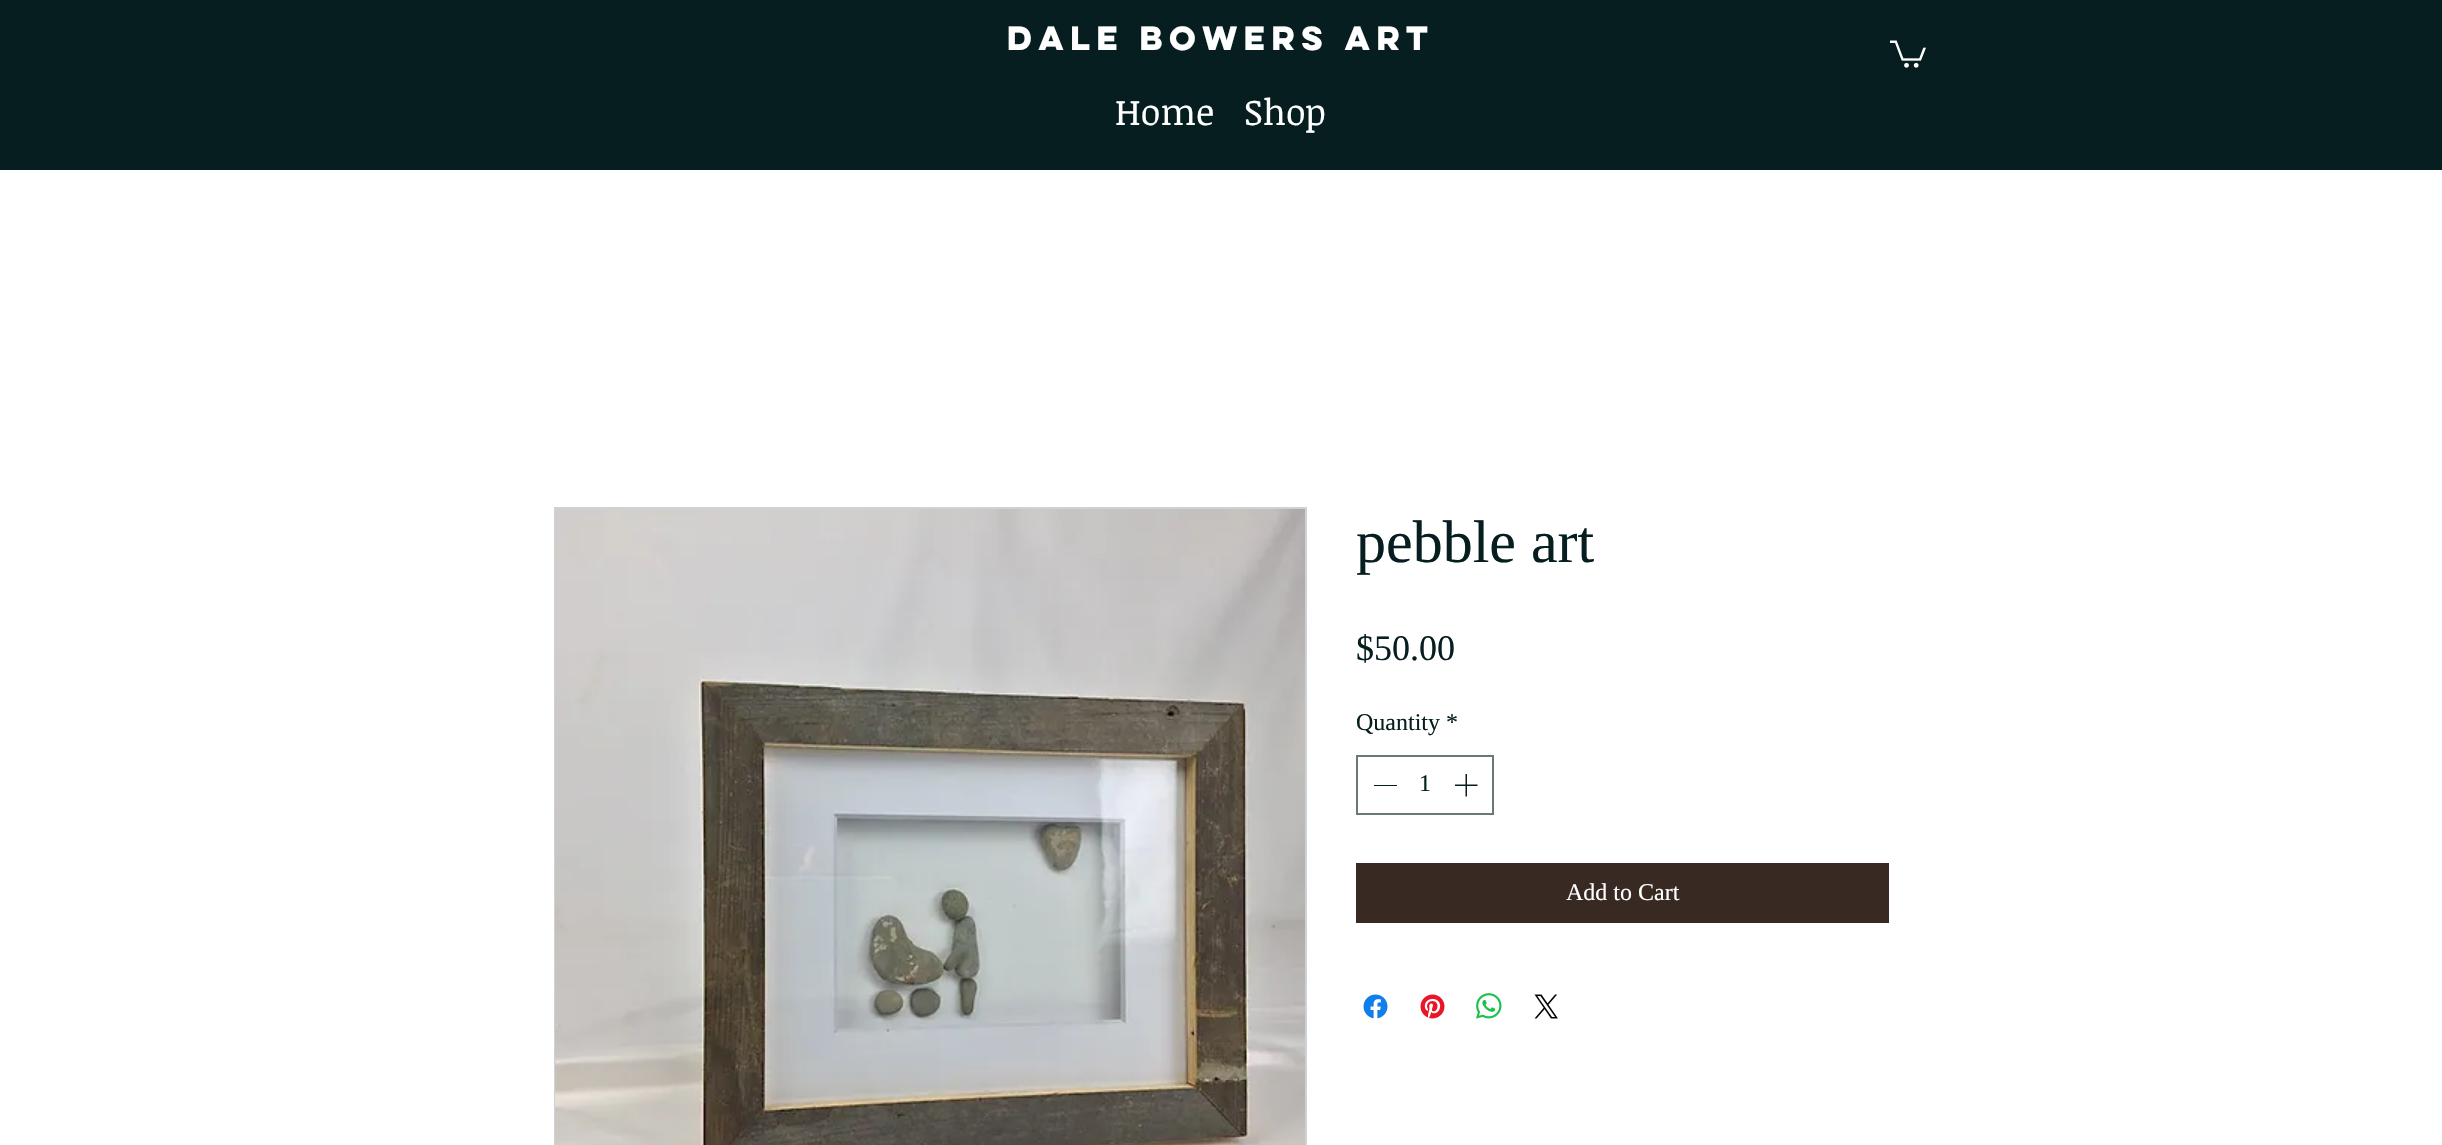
#include "include/core/SkBlurTypes.h"
#include "include/core/SkCanvas.h"
#include "include/core/SkData.h"
#include "include/core/SkFont.h"
#include "include/core/SkFontMgr.h"
#include "include/core/SkImage.h"
#include "include/core/SkMaskFilter.h"
#include "include/core/SkPaint.h"
#include "include/core/SkPathBuilder.h"
#include "include/core/SkTextBlob.h"
#include "include/effects/SkDashPathEffect.h"
#include "include/effects/SkGradientShader.h"
#include "include/utils/SkParsePath.h"

extern sk_sp<SkFontMgr> fontMgr;

void draw(SkCanvas* canvas) {
    SkPaint p;
    p.setAntiAlias(true);
    auto font = [&](const char* family, int weight, float size, bool italic = false) {
        SkFontStyle style(weight, SkFontStyle::kNormal_Width,
            italic ? SkFontStyle::kItalic_Slant : SkFontStyle::kUpright_Slant);
        SkFont result(fontMgr->matchFamilyStyle(family, style), size);
        result.setSubpixel(true);
        return result;
    };
    auto drawPhoto = [&](const char* path, float l, float t, float r, float b) {
        auto image = SkImages::DeferredFromEncodedData(SkData::MakeFromFileName(path));
        canvas->drawImageRect(image, SkRect::MakeLTRB(l, t, r, b), SkSamplingOptions());
    };
    canvas->clear(0xFFFFFFFF);
    p.setColor(0xFF061E20);
    canvas->drawRect(SkRect::MakeLTRB(0, 0, 2442, 170), p);
    auto font1 = font("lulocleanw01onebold", 700, 30);
    p.setColor(0xFFFFFFFF);
    canvas->drawString("Dale Bowers Art", 1007, 50, font1, p);
    drawPhoto("media/1.png", 1890, 40, 1926, 68);
    auto font2 = font("Noticia Text", 400, 36);
    canvas->drawString("Home", 1115, 125, font2, p);
    canvas->drawString("Shop", 1244, 125, font2, p);
    p.setStyle(SkPaint::kStroke_Style);
    p.setStrokeWidth(2);
    p.setColor(0xFFCDD2D2);
    canvas->drawRect(SkRect::MakeLTRB(555, 508, 1306, 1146), p);
    drawPhoto("media/2.png", 555, 509, 1305, 1145);
    auto font3 = font("Liberation Serif", 400, 60);
    p.setStyle(SkPaint::kFill_Style);
    p.setColor(0xFF061E20);
    canvas->drawString("pebble art", 1356, 562, font3, p);
    auto font4 = font("Liberation Serif", 400, 36);
    canvas->drawString("$50.00", 1356, 660, font4, p);
    auto font5 = font("Liberation Serif", 400, 24);
    canvas->drawString("Quantity *", 1356, 730, font5, p);
    p.setStyle(SkPaint::kStroke_Style);
    p.setColor(0xFF6A7879);
    canvas->drawRect(SkRect::MakeLTRB(1357, 756, 1493, 814), p);
    p.setStyle(SkPaint::kFill_Style);
    p.setColor(0xFF061E20);
    canvas->drawRect(SkRect::MakeLTRB(1374, 785, 1397, 786), p);
    canvas->drawString("1", 1419, 791, font5, p);
    drawPhoto("media/3.png", 1455, 774, 1478, 797);
    p.setColor(0xFF382A23);
    canvas->drawRect(SkRect::MakeLTRB(1356, 863, 1889, 923), p);
    p.setColor(0xFFFFFFFF);
    canvas->drawString("Add to Cart", 1566, 900, font5, p);
    drawPhoto("media/4.png", 1363, 994, 1388, 1019);
    drawPhoto("media/5.png", 1420, 994, 1445, 1019);
    drawPhoto("media/6.png", 1476, 993, 1502, 1019);
    drawPhoto("media/7.png", 1534, 994, 1558, 1019);
}
